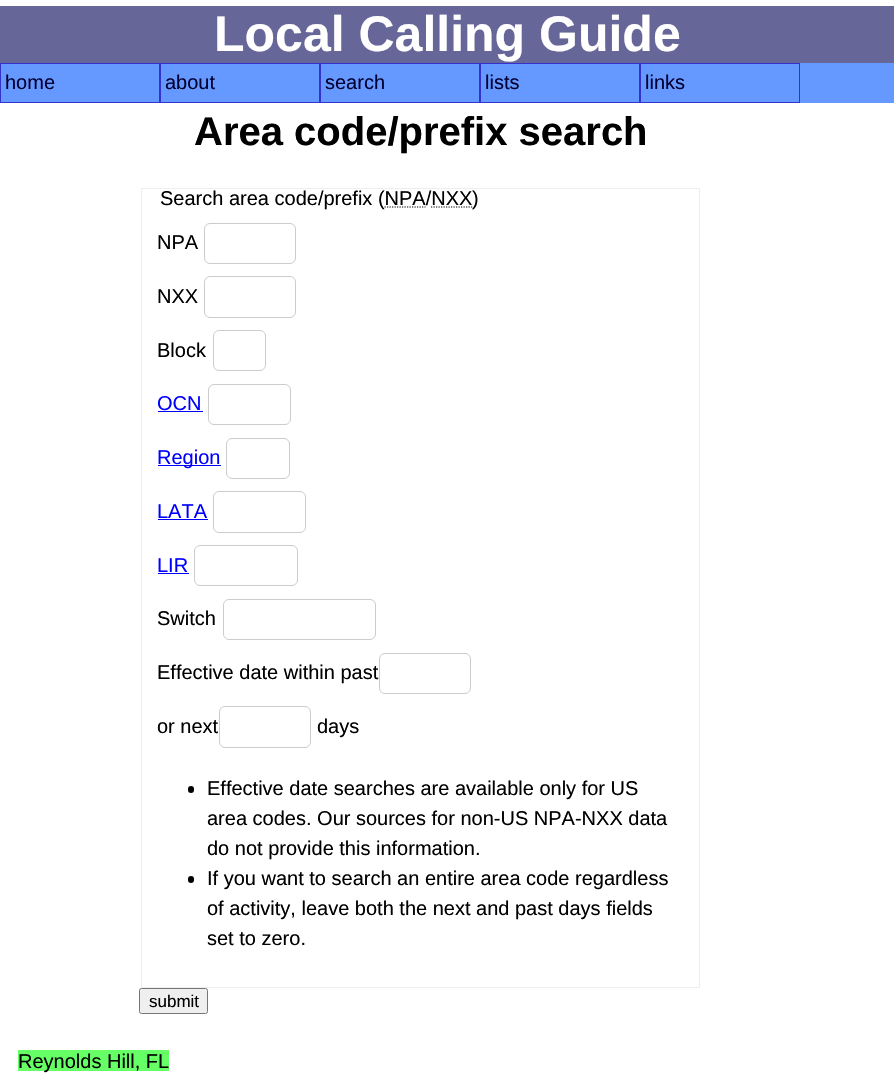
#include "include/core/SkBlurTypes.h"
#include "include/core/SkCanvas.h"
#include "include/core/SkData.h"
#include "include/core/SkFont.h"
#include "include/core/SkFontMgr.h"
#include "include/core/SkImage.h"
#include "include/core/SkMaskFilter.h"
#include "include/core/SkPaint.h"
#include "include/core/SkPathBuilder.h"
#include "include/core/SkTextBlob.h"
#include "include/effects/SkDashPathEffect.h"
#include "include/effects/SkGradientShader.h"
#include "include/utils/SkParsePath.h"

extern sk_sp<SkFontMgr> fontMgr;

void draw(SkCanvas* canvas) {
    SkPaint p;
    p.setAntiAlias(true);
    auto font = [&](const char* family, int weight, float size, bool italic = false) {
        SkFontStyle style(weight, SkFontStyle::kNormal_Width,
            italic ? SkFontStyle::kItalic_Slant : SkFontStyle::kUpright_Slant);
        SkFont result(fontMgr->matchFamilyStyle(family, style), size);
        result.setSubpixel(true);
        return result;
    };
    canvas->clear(0xFFFFFFFF);
    p.setColor(0xFF666699);
    canvas->drawRect(SkRect::MakeLTRB(0, 6, 894, 63), p);
    auto font1 = font("Liberation Sans", 700, 50);
    p.setColor(0xFFFFFFFF);
    canvas->drawString("Local Calling Guide", 214, 51, font1, p);
    p.setColor(0xFF6699FF);
    canvas->drawRect(SkRect::MakeLTRB(1, 63, 894, 103), p);
    p.setStyle(SkPaint::kStroke_Style);
    p.setStrokeWidth(1);
    p.setColor(0xFF3333CC);
    canvas->drawRect(SkRect::MakeLTRB(0.5f, 63.5f, 159.5f, 102.5f), p);
    auto font2 = font("Liberation Sans", 400, 20);
    p.setStyle(SkPaint::kFill_Style);
    p.setColor(0xFF000033);
    canvas->drawString("home", 5, 89, font2, p);
    p.setStyle(SkPaint::kStroke_Style);
    p.setColor(0xFF3333CC);
    canvas->drawRect(SkRect::MakeLTRB(160.5f, 63.5f, 319.5f, 102.5f), p);
    p.setStyle(SkPaint::kFill_Style);
    p.setColor(0xFF000033);
    canvas->drawString("about", 165, 89, font2, p);
    p.setStyle(SkPaint::kStroke_Style);
    p.setColor(0xFF3333CC);
    canvas->drawRect(SkRect::MakeLTRB(320.5f, 63.5f, 479.5f, 102.5f), p);
    p.setStyle(SkPaint::kFill_Style);
    p.setColor(0xFF000033);
    canvas->drawString("search", 325, 89, font2, p);
    p.setStyle(SkPaint::kStroke_Style);
    p.setColor(0xFF3333CC);
    canvas->drawRect(SkRect::MakeLTRB(480.5f, 63.5f, 639.5f, 102.5f), p);
    p.setStyle(SkPaint::kFill_Style);
    p.setColor(0xFF000033);
    canvas->drawString("lists", 485, 89, font2, p);
    p.setStyle(SkPaint::kStroke_Style);
    p.setColor(0xFF3333CC);
    canvas->drawRect(SkRect::MakeLTRB(640.5f, 63.5f, 799.5f, 102.5f), p);
    p.setStyle(SkPaint::kFill_Style);
    p.setColor(0xFF000033);
    canvas->drawString("links", 645, 89, font2, p);
    auto font3 = font("Liberation Sans", 700, 40);
    p.setColor(0xFF000000);
    canvas->drawString("Area code/prefix search", 194, 145, font3, p);
    p.setStyle(SkPaint::kStroke_Style);
    p.setColor(0xFFEEEEEE);
    canvas->drawRect(SkRect::MakeLTRB(141.5f, 188.5f, 699.5f, 987.5f), p);
    p.setStyle(SkPaint::kFill_Style);
    p.setColor(0xFF000000);
    canvas->drawString("Search area code/prefix (NPA/NXX", 160, 205, font2, p);
    p.setStyle(SkPaint::kStroke_Style);
    p.setStrokeWidth(1.2f);
    p.setPathEffect(SkDashPathEffect::Make({{1.25f, 1.25f}}, 0));
    canvas->drawPath(SkPathBuilder().moveTo(431, 207).lineTo(472.5f, 207).detach(), p);
    p.setPathEffect(nullptr);
    p.setStyle(SkPaint::kFill_Style);
    canvas->drawString(")", 472, 205, font2, p);
    p.setStyle(SkPaint::kStroke_Style);
    p.setPathEffect(SkDashPathEffect::Make({{1.25f, 1.25f}}, 0));
    canvas->drawPath(SkPathBuilder().moveTo(384.5f, 207).lineTo(425.5f, 207).detach(), p);
    p.setPathEffect(nullptr);
    p.setStyle(SkPaint::kFill_Style);
    canvas->drawString("NPA", 157, 249, font2, p);
    p.setStyle(SkPaint::kStroke_Style);
    p.setStrokeWidth(1);
    p.setColor(0xFFCCCCCC);
    canvas->drawRoundRect(SkRect::MakeLTRB(204.5f, 223.5f, 295.5f, 263.5f), 5.5f, 5.5f, p);
    p.setStyle(SkPaint::kFill_Style);
    p.setColor(0xFF000000);
    canvas->drawString("NXX", 157, 303, font2, p);
    p.setStyle(SkPaint::kStroke_Style);
    p.setColor(0xFFCCCCCC);
    canvas->drawRoundRect(SkRect::MakeLTRB(204.5f, 276.5f, 295.5f, 317.5f), 5.5f, 5.5f, p);
    p.setStyle(SkPaint::kFill_Style);
    p.setColor(0xFF000000);
    canvas->drawString("Block", 157, 357, font2, p);
    p.setStyle(SkPaint::kStroke_Style);
    p.setColor(0xFFCCCCCC);
    canvas->drawRoundRect(SkRect::MakeLTRB(213.5f, 330.5f, 265.5f, 370.5f), 5.5f, 5.5f, p);
    p.setStyle(SkPaint::kFill_Style);
    p.setColor(0xFF0000FF);
    canvas->drawString("OCN", 157, 410, font2, p);
    canvas->drawRect(SkRect::MakeLTRB(158, 411, 203, 412), p);
    p.setStyle(SkPaint::kStroke_Style);
    p.setColor(0xFFCCCCCC);
    canvas->drawRoundRect(SkRect::MakeLTRB(208.5f, 384.5f, 290.5f, 424.5f), 5.5f, 5.5f, p);
    p.setStyle(SkPaint::kFill_Style);
    p.setColor(0xFF0000FF);
    canvas->drawRect(SkRect::MakeLTRB(158, 465, 221, 466), p);
    canvas->drawString("Region", 157, 464, font2, p);
    p.setStyle(SkPaint::kStroke_Style);
    p.setColor(0xFFCCCCCC);
    canvas->drawRoundRect(SkRect::MakeLTRB(226.5f, 438.5f, 289.5f, 478.5f), 5.5f, 5.5f, p);
    p.setStyle(SkPaint::kFill_Style);
    p.setColor(0xFF0000FF);
    canvas->drawString("LATA", 157, 518, font2, p);
    canvas->drawRect(SkRect::MakeLTRB(158, 519, 208, 520), p);
    p.setStyle(SkPaint::kStroke_Style);
    p.setColor(0xFFCCCCCC);
    canvas->drawRoundRect(SkRect::MakeLTRB(213.5f, 491.5f, 305.5f, 532.5f), 5.5f, 5.5f, p);
    p.setStyle(SkPaint::kFill_Style);
    p.setColor(0xFF0000FF);
    canvas->drawString("LIR", 157, 572, font2, p);
    canvas->drawRect(SkRect::MakeLTRB(158, 573, 189, 574), p);
    p.setStyle(SkPaint::kStroke_Style);
    p.setColor(0xFFCCCCCC);
    canvas->drawRoundRect(SkRect::MakeLTRB(194.5f, 545.5f, 297.5f, 585.5f), 5.5f, 5.5f, p);
    p.setStyle(SkPaint::kFill_Style);
    p.setColor(0xFF000000);
    canvas->drawString("Switch", 157, 625, font2, p);
    p.setStyle(SkPaint::kStroke_Style);
    p.setColor(0xFFCCCCCC);
    canvas->drawRoundRect(SkRect::MakeLTRB(223.5f, 599.5f, 375.5f, 639.5f), 5.5f, 5.5f, p);
    p.setStyle(SkPaint::kFill_Style);
    p.setColor(0xFF000000);
    canvas->drawString("Effective date within past", 157, 679, font2, p);
    p.setStyle(SkPaint::kStroke_Style);
    p.setColor(0xFFCCCCCC);
    canvas->drawRoundRect(SkRect::MakeLTRB(379.5f, 653.5f, 470.5f, 693.5f), 5.5f, 5.5f, p);
    p.setStyle(SkPaint::kFill_Style);
    p.setColor(0xFF000000);
    canvas->drawString("or next", 157, 733, font2, p);
    p.setStyle(SkPaint::kStroke_Style);
    p.setColor(0xFFCCCCCC);
    canvas->drawRoundRect(SkRect::MakeLTRB(219.5f, 706.5f, 310.5f, 747.5f), 5.5f, 5.5f, p);
    p.setStyle(SkPaint::kFill_Style);
    p.setColor(0xFF000000);
    canvas->drawString("days", 317, 733, font2, p);
    canvas->drawRoundRect(SkRect::MakeLTRB(188, 786, 194, 793), 3, 3, p);
    {
        const struct { const char* s; float x, y; } items[] = {
            {"Effective date searches are available only for US", 207, 795},
            {"area codes. Our sources for non-US NPA-NXX data", 207, 825},
            {"do not provide this information.", 207, 855},
        };
        for (auto [s, x, y] : items) {
            canvas->drawString(s, x, y, font2, p);
        }
    }
    canvas->drawRoundRect(SkRect::MakeLTRB(188, 876, 194, 883), 3, 3, p);
    {
        const struct { const char* s; float x, y; } items[] = {
            {"If you want to search an entire area code regardless", 207, 885},
            {"of activity, leave both the next and past days fields", 207, 915},
            {"set to zero.", 207, 945},
        };
        for (auto [s, x, y] : items) {
            canvas->drawString(s, x, y, font2, p);
        }
    }
    p.setColor(0xFFEFEFEF);
    canvas->drawRoundRect(SkRect::MakeLTRB(139.5f, 988.5f, 207.5f, 1013.5f), 2, 2, p);
    p.setStyle(SkPaint::kStroke_Style);
    p.setColor(0xFF767676);
    canvas->drawRoundRect(SkRect::MakeLTRB(139.5f, 988.5f, 207.5f, 1013.5f), 2, 2, p);
    auto font4 = font("Liberation Sans", 400, 17);
    p.setStyle(SkPaint::kFill_Style);
    p.setColor(0xFF000000);
    canvas->drawString("submit", 149, 1007, font4, p);
    p.setColor(0xFF66FF66);
    canvas->drawRect(SkRect::MakeLTRB(18, 1050, 169, 1071), p);
    p.setColor(0xFF000000);
    canvas->drawString("Reynolds Hill, FL", 18, 1068, font2, p);
}
